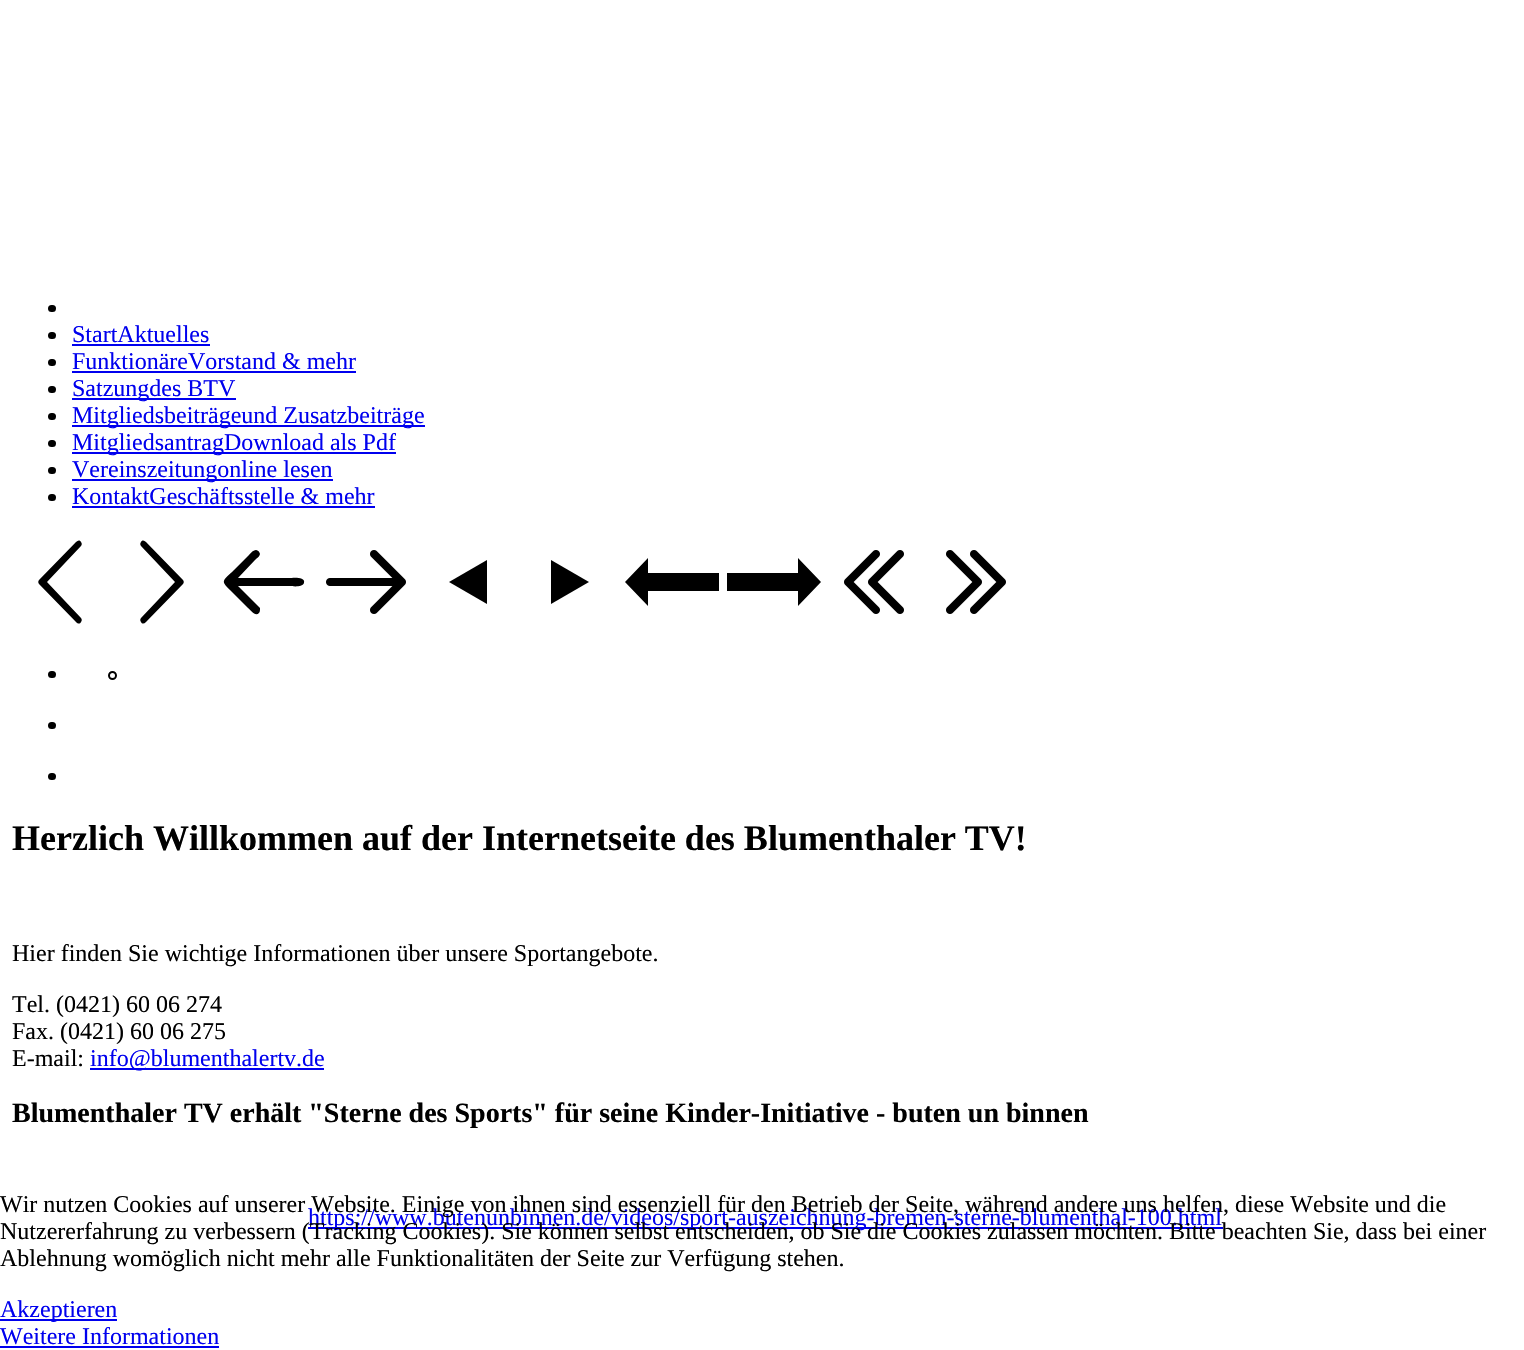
#include "include/core/SkBlurTypes.h"
#include "include/core/SkCanvas.h"
#include "include/core/SkData.h"
#include "include/core/SkFont.h"
#include "include/core/SkFontMgr.h"
#include "include/core/SkImage.h"
#include "include/core/SkMaskFilter.h"
#include "include/core/SkPaint.h"
#include "include/core/SkPathBuilder.h"
#include "include/core/SkTextBlob.h"
#include "include/effects/SkDashPathEffect.h"
#include "include/effects/SkGradientShader.h"
#include "include/utils/SkParsePath.h"

extern sk_sp<SkFontMgr> fontMgr;

void draw(SkCanvas* canvas) {
    SkPaint p;
    p.setAntiAlias(true);
    auto font = [&](const char* family, int weight, float size, bool italic = false) {
        SkFontStyle style(weight, SkFontStyle::kNormal_Width,
            italic ? SkFontStyle::kItalic_Slant : SkFontStyle::kUpright_Slant);
        SkFont result(fontMgr->matchFamilyStyle(family, style), size);
        result.setSubpixel(true);
        return result;
    };
    auto drawPhoto = [&](const char* path, float l, float t, float r, float b) {
        auto image = SkImages::DeferredFromEncodedData(SkData::MakeFromFileName(path));
        canvas->drawImageRect(image, SkRect::MakeLTRB(l, t, r, b), SkSamplingOptions());
    };
    canvas->clear(0xFFFFFFFF);
    p.setColor(0xFF000000);
    canvas->drawRoundRect(SkRect::MakeLTRB(48, 305, 56, 312), 3.5f, 3.5f, p);
    canvas->drawRoundRect(SkRect::MakeLTRB(48, 332, 56, 339), 3.5f, 3.5f, p);
    auto font1 = font("Liberation Serif", 400, 24);
    p.setColor(0xFF0000EE);
    canvas->drawString("StartAktuelles", 72, 342, font1, p);
    canvas->drawRect(SkRect::MakeLTRB(72, 344, 210, 346), p);
    p.setColor(0xFF000000);
    canvas->drawRoundRect(SkRect::MakeLTRB(48, 359, 56, 366), 3.5f, 3.5f, p);
    p.setColor(0xFF0000EE);
    canvas->drawString("FunktionäreVorstand & mehr", 72, 369, font1, p);
    canvas->drawRect(SkRect::MakeLTRB(72, 371, 356, 373), p);
    p.setColor(0xFF000000);
    canvas->drawRoundRect(SkRect::MakeLTRB(48, 386, 56, 393), 3.5f, 3.5f, p);
    p.setColor(0xFF0000EE);
    canvas->drawRect(SkRect::MakeLTRB(72, 398, 236, 400), p);
    canvas->drawString("Satzungdes BTV", 72, 396, font1, p);
    p.setColor(0xFF000000);
    canvas->drawRoundRect(SkRect::MakeLTRB(48, 413, 56, 420), 3.5f, 3.5f, p);
    p.setColor(0xFF0000EE);
    canvas->drawRect(SkRect::MakeLTRB(72, 425, 425, 427), p);
    canvas->drawString("Mitgliedsbeiträgeund Zusatzbeiträge", 72, 423, font1, p);
    p.setColor(0xFF000000);
    canvas->drawRoundRect(SkRect::MakeLTRB(48, 440, 56, 447), 3.5f, 3.5f, p);
    p.setColor(0xFF0000EE);
    canvas->drawRect(SkRect::MakeLTRB(72, 452, 396, 454), p);
    canvas->drawString("MitgliedsantragDownload als Pdf", 72, 450, font1, p);
    p.setColor(0xFF000000);
    canvas->drawRoundRect(SkRect::MakeLTRB(48, 467, 56, 474), 3.5f, 3.5f, p);
    p.setColor(0xFF0000EE);
    canvas->drawRect(SkRect::MakeLTRB(72, 479, 333, 481), p);
    canvas->drawString("Vereinszeitungonline lesen", 72, 477, font1, p);
    p.setColor(0xFF000000);
    canvas->drawRoundRect(SkRect::MakeLTRB(48, 494, 56, 501), 3.5f, 3.5f, p);
    p.setColor(0xFF0000EE);
    canvas->drawString("KontaktGeschäftsstelle & mehr", 72, 504, font1, p);
    canvas->drawRect(SkRect::MakeLTRB(72, 506, 375, 508), p);
    p.setColor(0xFF000000);
    canvas->drawPath(SkPathBuilder().moveTo(81, 618).cubicTo(82, 619, 82, 621, 81, 622).cubicTo(80, 624, 78, 624, 76, 622).lineTo(39, 584).cubicTo(38, 583, 38, 581, 39, 580).lineTo(76, 542).cubicTo(78, 540, 80, 540, 81, 542).cubicTo(82, 543, 82, 545, 81, 546).lineTo(47, 582).close().detach(), p);
    canvas->drawPath(SkPathBuilder().moveTo(141, 618).cubicTo(140, 619, 140, 621, 141, 622).cubicTo(142, 624, 144, 624, 146, 622).lineTo(183, 584).cubicTo(184, 583, 184, 581, 183, 580).lineTo(146, 542).cubicTo(144, 540, 142, 540, 141, 542).cubicTo(140, 543, 140, 545, 141, 546).lineTo(175, 582).close().detach(), p);
    canvas->drawPath(SkPathBuilder().moveTo(256, 550).cubicTo(257, 550, 259, 551, 259, 552).cubicTo(262, 555, 257, 558, 255, 560).lineTo(238, 578).lineTo(290, 578).cubicTo(291, 578, 306, 576, 304, 583).cubicTo(302, 588, 291, 586, 290, 586).lineTo(238, 586).lineTo(260, 608).cubicTo(260, 610, 260, 612, 259, 613).cubicTo(255, 617, 251, 610, 248, 608).lineTo(230, 590).cubicTo(220, 580, 223, 581, 234, 570).lineTo(248, 556).cubicTo(250, 554, 253, 550, 256, 550).close().detach(), p);
    drawPhoto("media/1.png", 326, 550, 406, 614);
    canvas->drawPath(SkPathBuilder().moveTo(487, 560).lineTo(487, 604).lineTo(449, 582).close().detach(), p);
    canvas->drawPath(SkPathBuilder().moveTo(551, 560).lineTo(551, 604).lineTo(589, 582).close().detach(), p);
    canvas->drawPath(SkPathBuilder().moveTo(648, 606).lineTo(648, 591).lineTo(719, 591).lineTo(719, 573).lineTo(648, 573).lineTo(648, 558).lineTo(625, 582).close().detach(), p);
    canvas->drawPath(SkPathBuilder().moveTo(798, 606).lineTo(798, 591).lineTo(727, 591).lineTo(727, 573).lineTo(798, 573).lineTo(798, 558).lineTo(821, 582).close().detach(), p);
    drawPhoto("media/2.png", 844, 550, 904, 614);
    drawPhoto("media/3.png", 946, 550, 1006, 614);
    canvas->drawRoundRect(SkRect::MakeLTRB(48, 671, 56, 678), 3.5f, 3.5f, p);
    p.setStyle(SkPaint::kStroke_Style);
    p.setStrokeWidth(2);
    canvas->drawCircle(112.5f, 675.5f, 3.5f, p);
    p.setStyle(SkPaint::kFill_Style);
    canvas->drawRoundRect(SkRect::MakeLTRB(48, 722, 56, 729), 3.5f, 3.5f, p);
    canvas->drawRoundRect(SkRect::MakeLTRB(48, 773, 56, 780), 3.5f, 3.5f, p);
    auto font2 = font("Liberation Serif", 700, 36);
    canvas->drawString("Herzlich Willkommen auf der Internetseite des Blumenthaler TV!", 12, 850, font2, p);
    {
        const struct { const char* s; float x, y; } items[] = {
            {"Hier finden Sie wichtige Informationen über unsere Sportangebote.", 12, 961},
            {"Tel. (0421) 60 06 274", 12, 1012},
            {"Fax. (0421) 60 06 275", 12, 1039},
            {"E-mail:", 12, 1066},
        };
        for (auto [s, x, y] : items) {
            canvas->drawString(s, x, y, font1, p);
        }
    }
    p.setColor(0xFF0000EE);
    canvas->drawRect(SkRect::MakeLTRB(90, 1068, 324, 1070), p);
    canvas->drawString("info@blumenthalertv.de", 90, 1066, font1, p);
    auto font3 = font("Liberation Serif", 700, 28);
    p.setColor(0xFF000000);
    canvas->drawString("Blumenthaler TV erhält \"Sterne des Sports\" für seine Kinder-Initiative - buten un binnen", 12, 1122, font3, p);
    p.setColor(0xFF0000EE);
    canvas->drawRect(SkRect::MakeLTRB(308, 1227, 1223, 1229), p);
    canvas->drawString("https://www.butenunbinnen.de/videos/sport-auszeichnung-bremen-sterne-blumenthal-100.html", 308, 1225, font1, p);
    p.setColor(0xFF000000);
    {
        const struct { const char* s; float x, y; } items[] = {
            {"Wir nutzen Cookies auf unserer Website. Einige von ihnen sind essenziell für den Betrieb der Seite, während andere uns helfen, diese Website und die", 0, 1212},
            {"Nutzererfahrung zu verbessern (Tracking Cookies). Sie können selbst entscheiden, ob Sie die Cookies zulassen möchten. Bitte beachten Sie, dass bei einer", 0, 1239},
            {"Ablehnung womöglich nicht mehr alle Funktionalitäten der Seite zur Verfügung stehen.", 0, 1266},
        };
        for (auto [s, x, y] : items) {
            canvas->drawString(s, x, y, font1, p);
        }
    }
    p.setColor(0xFF0000EE);
    canvas->drawRect(SkRect::MakeLTRB(0, 1319, 117, 1321), p);
    canvas->drawString("Akzeptieren", 0, 1317, font1, p);
    canvas->drawString("Weitere Informationen", 0, 1344, font1, p);
    canvas->drawRect(SkRect::MakeLTRB(0, 1346, 219, 1348), p);
}
